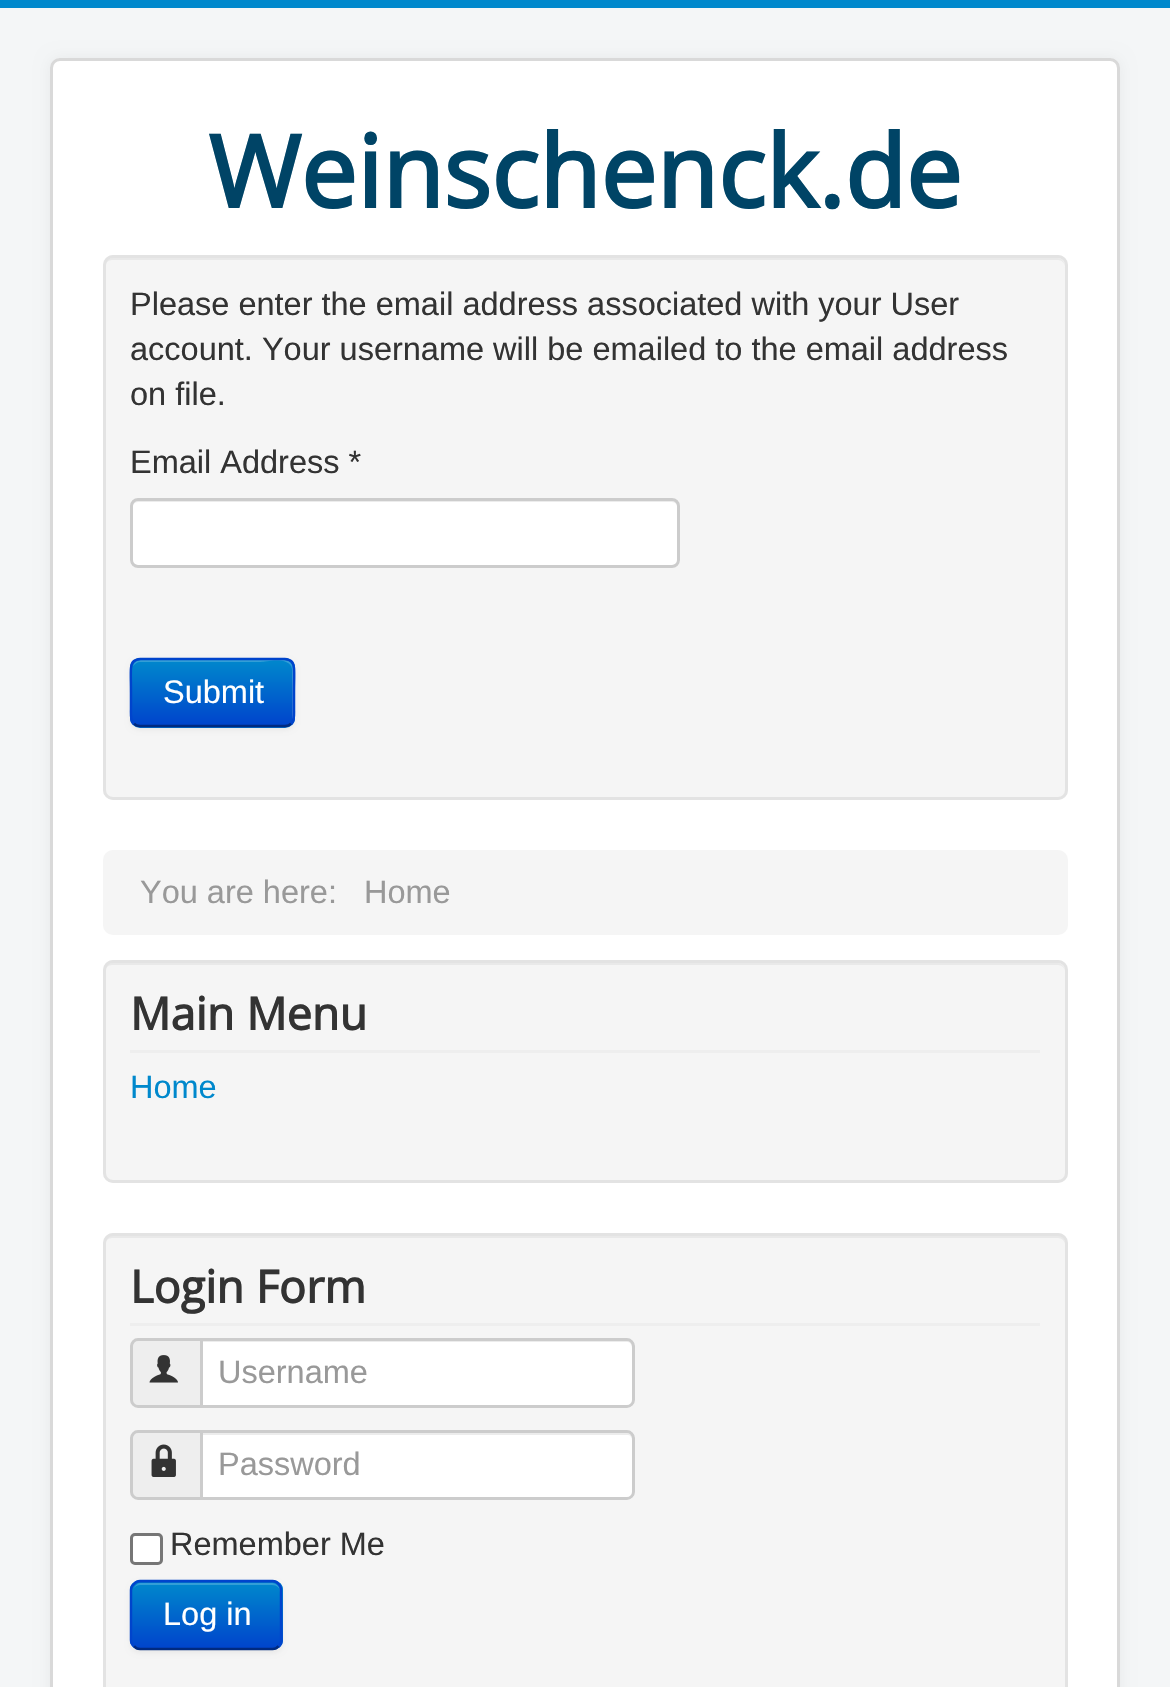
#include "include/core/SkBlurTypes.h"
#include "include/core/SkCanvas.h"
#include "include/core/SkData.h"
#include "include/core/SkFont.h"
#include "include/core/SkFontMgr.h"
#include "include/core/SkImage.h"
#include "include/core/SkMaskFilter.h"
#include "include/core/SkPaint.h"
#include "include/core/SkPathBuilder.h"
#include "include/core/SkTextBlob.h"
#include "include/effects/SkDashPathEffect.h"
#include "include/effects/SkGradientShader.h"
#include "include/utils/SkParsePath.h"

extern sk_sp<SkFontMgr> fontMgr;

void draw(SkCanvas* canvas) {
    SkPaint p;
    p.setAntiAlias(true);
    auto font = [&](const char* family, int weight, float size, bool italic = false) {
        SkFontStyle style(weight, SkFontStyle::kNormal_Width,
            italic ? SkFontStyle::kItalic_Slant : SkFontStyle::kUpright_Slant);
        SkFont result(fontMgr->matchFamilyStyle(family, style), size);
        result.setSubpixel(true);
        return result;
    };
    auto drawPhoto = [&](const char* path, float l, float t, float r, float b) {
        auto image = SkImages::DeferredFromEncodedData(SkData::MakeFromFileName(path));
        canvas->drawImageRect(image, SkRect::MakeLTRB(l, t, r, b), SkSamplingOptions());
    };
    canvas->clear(0xFFF4F6F7);
    p.setColor(0xFF0088CC);
    canvas->drawRect(SkRect::MakeLTRB(0, 0, 1170, 8), p);
    p.setColor(0x0D000000);
    p.setMaskFilter(SkMaskFilter::MakeBlur(kNormal_SkBlurStyle, 7.5f));
    canvas->drawRoundRect(SkRect::MakeLTRB(50, 58, 1120, 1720), 10, 10, p);
    p.setMaskFilter(nullptr);
    p.setColor(0xFFFFFFFF);
    canvas->drawRoundRect(SkRect::MakeLTRB(50, 58, 1120, 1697), 10, 10, p);
    p.setStyle(SkPaint::kStroke_Style);
    p.setStrokeWidth(3);
    p.setColor(0x26000000);
    canvas->drawRoundRect(SkRect::MakeLTRB(51.5f, 59.5f, 1118.5f, 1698.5f), 8.5f, 8.5f, p);
    auto font1 = font("Open Sans", 700, 100);
    p.setStyle(SkPaint::kFill_Style);
    p.setColor(0xFF004466);
    canvas->drawString("Weinschenck.de", 208, 208, font1, p);
    p.setColor(0xFFF5F5F5);
    canvas->drawRoundRect(SkRect::MakeLTRB(103, 255, 1068, 800), 10, 10, p);
    p.setColor(0xFFE9E9E9);
    canvas->drawPath(SkPathBuilder().moveTo(112, 260).lineTo(1058, 260).cubicTo(1062, 260, 1065, 263, 1065, 268).cubicTo(1065, 263, 1063, 258, 1057, 258).lineTo(113, 258).cubicTo(107, 258, 105, 263, 105, 268).cubicTo(105, 263, 108, 260, 112, 260).close().detach(), p);
    p.setStyle(SkPaint::kStroke_Style);
    p.setColor(0xFFE3E3E3);
    canvas->drawRoundRect(SkRect::MakeLTRB(104.5f, 256.5f, 1066.5f, 798.5f), 8.5f, 8.5f, p);
    auto font2 = font("Liberation Sans", 400, 32.5f);
    p.setStyle(SkPaint::kFill_Style);
    p.setColor(0xFF333333);
    {
        const struct { const char* s; float x, y; } items[] = {
            {"Please enter the email address associated with your User", 130, 315},
            {"account. Your username will be emailed to the email address", 130, 360},
            {"on file.", 130, 405},
            {"Email Address *", 130, 473},
        };
        for (auto [s, x, y] : items) {
            canvas->drawString(s, x, y, font2, p);
        }
    }
    p.setColor(0xFFFFFFFF);
    canvas->drawRoundRect(SkRect::MakeLTRB(130, 498, 680, 568), 8, 8, p);
    p.setColor(0xFFECECEC);
    canvas->drawPath(SkPathBuilder().moveTo(138, 502).lineTo(672, 502).cubicTo(675, 502, 678, 505, 678, 508).lineTo(678, 505).cubicTo(678, 502, 676, 500, 673, 500).lineTo(138, 500).cubicTo(135, 500, 133, 502, 133, 505).cubicTo(134, 503, 136, 502, 138, 502).close().detach(), p);
    p.setStyle(SkPaint::kStroke_Style);
    p.setColor(0xFFCCCCCC);
    canvas->drawRoundRect(SkRect::MakeLTRB(131.5f, 499.5f, 678.5f, 566.5f), 6.5f, 6.5f, p);
    p.setStyle(SkPaint::kFill_Style);
    p.setColor(0x0D000000);
    p.setMaskFilter(SkMaskFilter::MakeBlur(kNormal_SkBlurStyle, 2.5f));
    canvas->drawRoundRect(SkRect::MakeLTRB(130, 660, 295, 730), 10, 10, p);
    p.setMaskFilter(nullptr);
    p.setColor(0xFF006DCC);
    canvas->drawRoundRect(SkRect::MakeLTRB(130, 658, 295, 728), 10, 10, p);
    canvas->save();
    canvas->clipPath(SkPathBuilder().moveTo(140, 658).lineTo(285, 658).cubicTo(290.5f, 658, 295, 662.5f, 295, 668).lineTo(295, 718).cubicTo(295, 723.5f, 290.5f, 728, 285, 728).lineTo(140, 728).cubicTo(134.5f, 728, 130, 723.5f, 130, 718).lineTo(130, 668).cubicTo(130, 662.5f, 134.5f, 658, 140, 658).close().detach(), true);
    {
        const SkColor colors[] = {0xFF0088CC, 0xFF0044CC};
        const float stops[] = {0, 1};
        const SkPoint ends[] = {{213, 660}, {213, 725}};
        p.setShader(SkGradientShader::MakeLinear(ends, colors, stops, 2, SkTileMode::kClamp));
        p.setAlpha(255);
    }
    canvas->drawRect(SkRect::MakeLTRB(130, 660, 295, 725), p);
    canvas->restore();
    p.setShader(nullptr);
    p.setColor(0x33FFFFFF);
    canvas->drawPath(SkPathBuilder().moveTo(140, 662).lineTo(261, 662).cubicTo(265, 662, 290, 656, 292, 669).lineTo(292, 721).cubicTo(293, 720, 293, 718, 293, 717).lineTo(293, 668).cubicTo(293, 664, 289, 660, 285, 660).lineTo(141, 660).cubicTo(137, 660, 134, 663, 133, 666).cubicTo(135, 664, 137, 662, 140, 662).close().detach(), p);
    p.setStyle(SkPaint::kStroke_Style);
    p.setStrokeWidth(2.5f);
    p.setColor(0xFF002A80);
    canvas->drawPath(SkPathBuilder().moveTo(291, 723.5f).cubicTo(289.5f, 725.5f, 287.5f, 726, 285, 726).lineTo(140, 726).cubicTo(137.5f, 726, 135.5f, 725.5f, 134, 723.5f).detach(), p);
    p.setColor(0xFF0044CC);
    canvas->drawPath(SkPathBuilder().moveTo(134, 723.5f).cubicTo(130, 720, 131, 714, 131, 709).lineTo(131, 692.5f).cubicTo(131, 655, 126, 659, 164, 659).lineTo(261, 659).cubicTo(299, 659, 294, 655, 294, 692.5f).lineTo(294, 709).cubicTo(294, 714, 295, 720, 291, 723.5f).detach(), p);
    p.setStyle(SkPaint::kFill_Style);
    p.setColor(0xFFFFFFFF);
    canvas->drawString("Submit", 163, 703, font2, p);
    p.setColor(0xFFF5F5F5);
    canvas->drawRoundRect(SkRect::MakeLTRB(103, 850, 1068, 935), 10, 10, p);
    p.setColor(0xFF999999);
    canvas->drawString("You are here:", 140, 903, font2, p);
    canvas->drawString("Home", 364, 903, font2, p);
    p.setColor(0xFFF5F5F5);
    canvas->drawRoundRect(SkRect::MakeLTRB(103, 960, 1068, 1183), 10, 10, p);
    p.setColor(0xFFE9E9E9);
    canvas->drawPath(SkPathBuilder().moveTo(112, 965).lineTo(1058, 965).cubicTo(1062, 965, 1065, 968, 1065, 972).cubicTo(1065, 967, 1062, 963, 1057, 963).lineTo(113, 963).cubicTo(108, 963, 105, 967, 105, 972).cubicTo(105, 968, 108, 965, 112, 965).close().detach(), p);
    p.setStyle(SkPaint::kStroke_Style);
    p.setStrokeWidth(3);
    p.setColor(0xFFE3E3E3);
    canvas->drawRoundRect(SkRect::MakeLTRB(104.5f, 961.5f, 1066.5f, 1181.5f), 8.5f, 8.5f, p);
    p.setStyle(SkPaint::kFill_Style);
    p.setColor(0xFFEEEEEE);
    canvas->drawRect(SkRect::MakeLTRB(130, 1050, 1040, 1053), p);
    auto font3 = font("Open Sans", 700, 45);
    p.setColor(0xFF333333);
    canvas->drawString("Main Menu", 130, 1030, font3, p);
    p.setColor(0xFF0088CC);
    canvas->drawString("Home", 130, 1098, font2, p);
    p.setColor(0xFFF5F5F5);
    canvas->drawRoundRect(SkRect::MakeLTRB(103, 1233, 1068, 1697), 10, 10, p);
    p.setColor(0xFFE9E9E9);
    canvas->drawPath(SkPathBuilder().moveTo(112, 1238).lineTo(1058, 1238).cubicTo(1062, 1238, 1065, 1241, 1065, 1245).cubicTo(1065, 1240, 1063, 1235, 1057, 1235).lineTo(113, 1235).cubicTo(107, 1235, 105, 1240, 105, 1245).cubicTo(105, 1241, 108, 1238, 112, 1238).close().detach(), p);
    p.setStyle(SkPaint::kStroke_Style);
    p.setColor(0xFFE3E3E3);
    canvas->drawRoundRect(SkRect::MakeLTRB(104.5f, 1234.5f, 1066.5f, 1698.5f), 8.5f, 8.5f, p);
    p.setStyle(SkPaint::kFill_Style);
    p.setColor(0xFFEEEEEE);
    canvas->drawRect(SkRect::MakeLTRB(130, 1323, 1040, 1326), p);
    p.setColor(0xFF333333);
    canvas->drawString("Login Form", 130, 1303, font3, p);
    p.setColor(0xFFEEEEEE);
    canvas->drawPath(SkPathBuilder().moveTo(138, 1339.5f).lineTo(201.5f, 1339.5f).lineTo(201.5f, 1406.5f).lineTo(138, 1406.5f).cubicTo(134.5f, 1406.5f, 131.5f, 1403.5f, 131.5f, 1400).lineTo(131.5f, 1346).cubicTo(131.5f, 1342.5f, 134.5f, 1339.5f, 138, 1339.5f).close().detach(), p);
    p.setStyle(SkPaint::kStroke_Style);
    p.setColor(0xFFCCCCCC);
    canvas->drawPath(SkPathBuilder().moveTo(138, 1339.5f).lineTo(201.5f, 1339.5f).lineTo(201.5f, 1406.5f).lineTo(138, 1406.5f).cubicTo(134.5f, 1406.5f, 131.5f, 1403.5f, 131.5f, 1400).lineTo(131.5f, 1346).cubicTo(131.5f, 1342.5f, 134.5f, 1339.5f, 138, 1339.5f).close().detach(), p);
    drawPhoto("media/1.png", 149, 1355, 178, 1383);
    p.setStyle(SkPaint::kFill_Style);
    p.setColor(0xFFFFFFFF);
    canvas->drawPath(SkPathBuilder().moveTo(200, 1338).lineTo(627, 1338).cubicTo(631.5f, 1338, 635, 1341.5f, 635, 1346).lineTo(635, 1400).cubicTo(635, 1404.5f, 631.5f, 1408, 627, 1408).lineTo(200, 1408).close().detach(), p);
    p.setColor(0xFFECECEC);
    canvas->drawPath(SkPathBuilder().moveTo(203, 1340).lineTo(203, 1342).lineTo(628, 1342).cubicTo(630, 1342, 632, 1345, 632, 1348).lineTo(632, 1403).cubicTo(633, 1402, 633, 1401, 633, 1400).lineTo(633, 1345).cubicTo(633, 1342, 631, 1340, 628, 1340).close().detach(), p);
    p.setStyle(SkPaint::kStroke_Style);
    p.setColor(0xFFCCCCCC);
    canvas->drawPath(SkPathBuilder().moveTo(201.5f, 1339.5f).lineTo(627, 1339.5f).cubicTo(630.5f, 1339.5f, 633.5f, 1342.5f, 633.5f, 1346).lineTo(633.5f, 1400).cubicTo(633.5f, 1403.5f, 630.5f, 1406.5f, 627, 1406.5f).lineTo(201.5f, 1406.5f).close().detach(), p);
    p.setStyle(SkPaint::kFill_Style);
    p.setColor(0xFF999999);
    canvas->drawString("Username", 218, 1383, font2, p);
    p.setColor(0xFFEEEEEE);
    canvas->drawPath(SkPathBuilder().moveTo(138, 1431.5f).lineTo(201.5f, 1431.5f).lineTo(201.5f, 1498.5f).lineTo(138, 1498.5f).cubicTo(134.5f, 1498.5f, 131.5f, 1495.5f, 131.5f, 1492).lineTo(131.5f, 1438).cubicTo(131.5f, 1434.5f, 134.5f, 1431.5f, 138, 1431.5f).close().detach(), p);
    p.setStyle(SkPaint::kStroke_Style);
    p.setColor(0xFFCCCCCC);
    canvas->drawPath(SkPathBuilder().moveTo(138, 1431.5f).lineTo(201.5f, 1431.5f).lineTo(201.5f, 1498.5f).lineTo(138, 1498.5f).cubicTo(134.5f, 1498.5f, 131.5f, 1495.5f, 131.5f, 1492).lineTo(131.5f, 1438).cubicTo(131.5f, 1434.5f, 134.5f, 1431.5f, 138, 1431.5f).close().detach(), p);
    drawPhoto("media/2.png", 151, 1444, 176, 1477);
    p.setStyle(SkPaint::kFill_Style);
    p.setColor(0xFFFFFFFF);
    canvas->drawPath(SkPathBuilder().moveTo(200, 1430).lineTo(627, 1430).cubicTo(631.5f, 1430, 635, 1433.5f, 635, 1438).lineTo(635, 1492).cubicTo(635, 1496.5f, 631.5f, 1500, 627, 1500).lineTo(200, 1500).close().detach(), p);
    p.setColor(0xFFECECEC);
    canvas->drawPath(SkPathBuilder().moveTo(203, 1433).lineTo(203, 1435).lineTo(628, 1435).cubicTo(630, 1435, 632, 1437, 632, 1440).lineTo(632, 1496).cubicTo(633, 1495, 633, 1494, 633, 1493).lineTo(633, 1438).cubicTo(633, 1435, 631, 1433, 628, 1433).close().detach(), p);
    p.setStyle(SkPaint::kStroke_Style);
    p.setColor(0xFFCCCCCC);
    canvas->drawPath(SkPathBuilder().moveTo(201.5f, 1431.5f).lineTo(627, 1431.5f).cubicTo(630.5f, 1431.5f, 633.5f, 1434.5f, 633.5f, 1438).lineTo(633.5f, 1492).cubicTo(633.5f, 1495.5f, 630.5f, 1498.5f, 627, 1498.5f).lineTo(201.5f, 1498.5f).close().detach(), p);
    p.setStyle(SkPaint::kFill_Style);
    p.setColor(0xFF999999);
    canvas->drawString("Password", 218, 1475, font2, p);
    p.setColor(0xFFFFFFFF);
    canvas->drawRoundRect(SkRect::MakeLTRB(131.5f, 1534.5f, 161.5f, 1563.5f), 3.5f, 3.5f, p);
    p.setStyle(SkPaint::kStroke_Style);
    p.setColor(0xFF767676);
    canvas->drawRoundRect(SkRect::MakeLTRB(131.5f, 1534.5f, 161.5f, 1563.5f), 3.5f, 3.5f, p);
    p.setStyle(SkPaint::kFill_Style);
    p.setColor(0xFF333333);
    canvas->drawString("Remember Me", 170, 1555, font2, p);
    p.setColor(0x0D000000);
    p.setMaskFilter(SkMaskFilter::MakeBlur(kNormal_SkBlurStyle, 2.5f));
    canvas->drawRoundRect(SkRect::MakeLTRB(130, 1583, 283, 1653), 10, 10, p);
    p.setMaskFilter(nullptr);
    p.setColor(0xFF006DCC);
    canvas->drawRoundRect(SkRect::MakeLTRB(130, 1580, 283, 1650), 10, 10, p);
    canvas->save();
    canvas->clipPath(SkPathBuilder().moveTo(140, 1580).lineTo(273, 1580).cubicTo(278.5f, 1580, 283, 1584.5f, 283, 1590).lineTo(283, 1640).cubicTo(283, 1645.5f, 278.5f, 1650, 273, 1650).lineTo(140, 1650).cubicTo(134.5f, 1650, 130, 1645.5f, 130, 1640).lineTo(130, 1590).cubicTo(130, 1584.5f, 134.5f, 1580, 140, 1580).close().detach(), true);
    {
        const SkColor colors[] = {0xFF0088CC, 0xFF0044CC};
        const float stops[] = {0, 1};
        const SkPoint ends[] = {{206, 1583}, {206, 1648}};
        p.setShader(SkGradientShader::MakeLinear(ends, colors, stops, 2, SkTileMode::kClamp));
        p.setAlpha(255);
    }
    canvas->drawRect(SkRect::MakeLTRB(130, 1583, 283, 1648), p);
    canvas->restore();
    p.setShader(nullptr);
    p.setColor(0x33FFFFFF);
    canvas->drawPath(SkPathBuilder().moveTo(140, 1585).lineTo(272, 1585).cubicTo(277, 1585, 280, 1588, 280, 1592).lineTo(280, 1591).cubicTo(280, 1587, 276, 1583, 272, 1583).lineTo(141, 1583).cubicTo(138, 1583, 135, 1585, 134, 1588).cubicTo(135, 1586, 138, 1585, 140, 1585).close().detach(), p);
    p.setStyle(SkPaint::kStroke_Style);
    p.setStrokeWidth(2.5f);
    p.setColor(0xFF002A80);
    canvas->drawPath(SkPathBuilder().moveTo(278.5f, 1646).cubicTo(277, 1648, 275, 1649, 272.5f, 1649).lineTo(140, 1649).cubicTo(137.5f, 1649, 135.5f, 1648, 134, 1646).detach(), p);
    p.setColor(0xFF0044CC);
    canvas->drawPath(SkPathBuilder().moveTo(134, 1646).cubicTo(132, 1644.5f, 131, 1642.5f, 131, 1640).lineTo(131, 1590).cubicTo(131, 1587.5f, 132, 1585.5f, 134, 1584).cubicTo(135.5f, 1582, 137.5f, 1581, 140, 1581).lineTo(272.5f, 1581).cubicTo(275, 1581, 277, 1582, 278.5f, 1584).cubicTo(280.5f, 1585.5f, 281, 1587.5f, 281, 1590).lineTo(281, 1640).cubicTo(281, 1642.5f, 280.5f, 1644.5f, 278.5f, 1646).detach(), p);
    p.setStyle(SkPaint::kFill_Style);
    p.setColor(0xFFFFFFFF);
    canvas->drawString("Log in", 163, 1625, font2, p);
}
